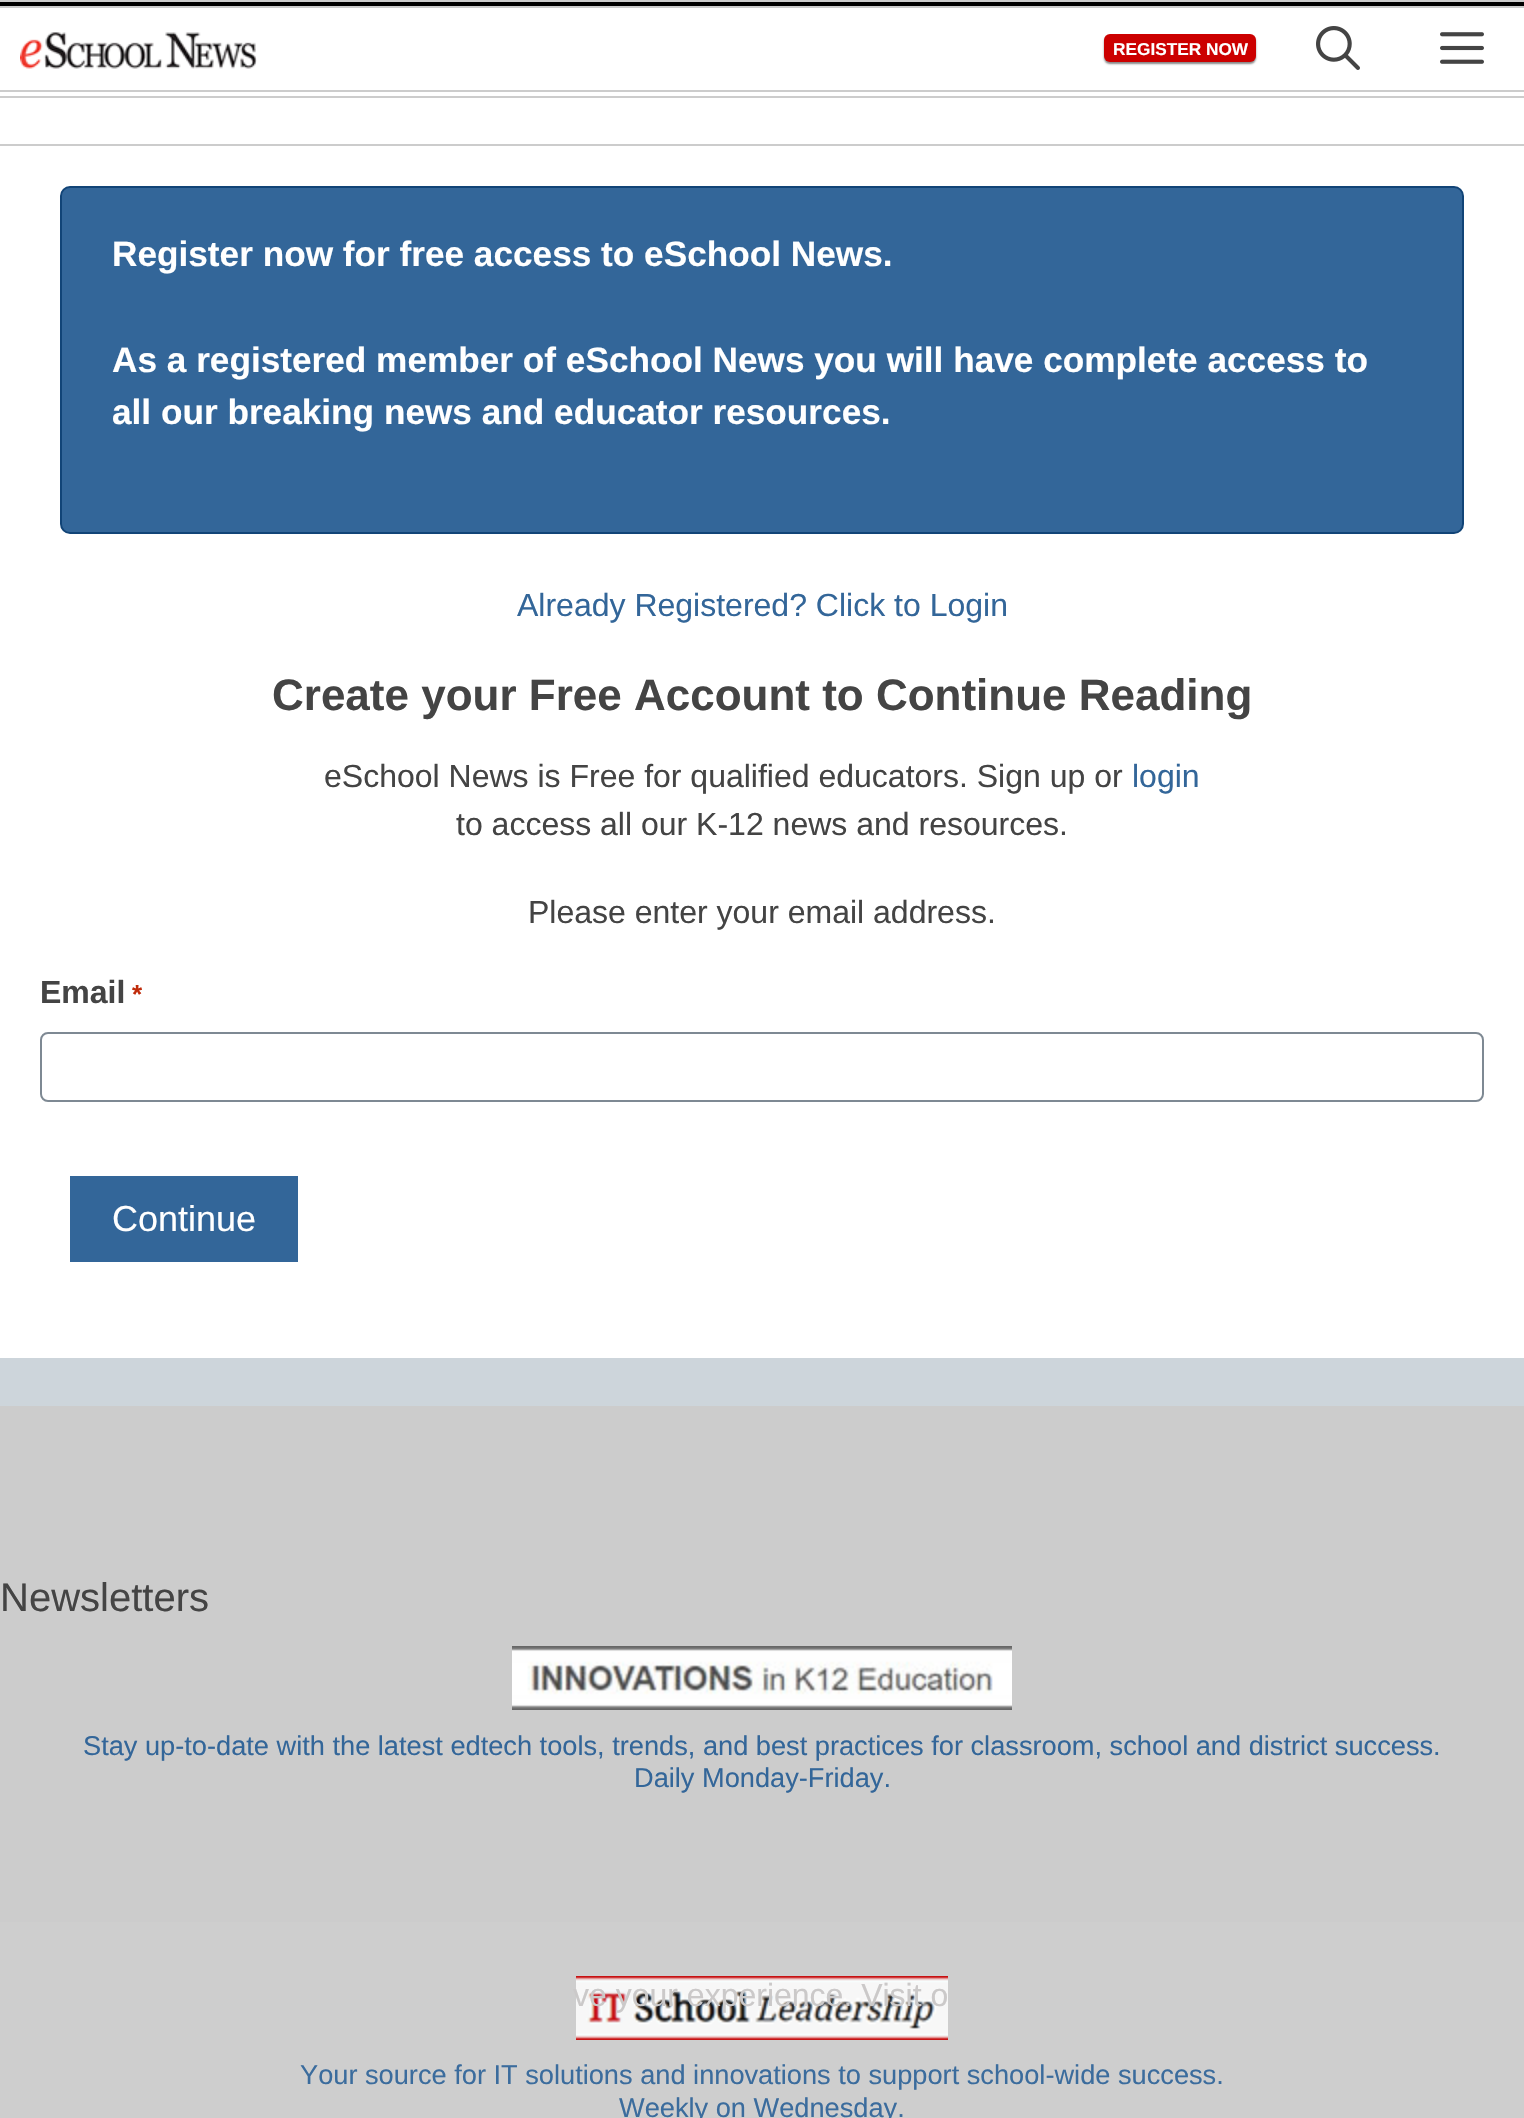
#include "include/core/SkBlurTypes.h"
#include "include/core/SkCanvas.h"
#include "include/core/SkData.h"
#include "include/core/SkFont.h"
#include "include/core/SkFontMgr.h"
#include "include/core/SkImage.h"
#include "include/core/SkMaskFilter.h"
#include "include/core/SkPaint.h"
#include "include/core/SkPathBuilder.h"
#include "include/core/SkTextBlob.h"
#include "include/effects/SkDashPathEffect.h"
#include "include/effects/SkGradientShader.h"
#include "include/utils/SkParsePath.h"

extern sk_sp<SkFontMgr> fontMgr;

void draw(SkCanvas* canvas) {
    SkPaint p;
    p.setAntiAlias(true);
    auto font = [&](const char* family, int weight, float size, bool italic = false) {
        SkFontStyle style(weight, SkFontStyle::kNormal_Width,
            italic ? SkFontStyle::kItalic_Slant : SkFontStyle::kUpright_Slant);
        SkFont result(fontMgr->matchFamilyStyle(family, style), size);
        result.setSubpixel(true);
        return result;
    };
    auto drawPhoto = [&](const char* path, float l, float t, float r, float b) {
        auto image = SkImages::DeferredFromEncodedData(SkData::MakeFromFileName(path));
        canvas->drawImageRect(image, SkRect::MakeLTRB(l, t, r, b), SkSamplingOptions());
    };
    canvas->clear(0xFFCDD5DB);
    {
        const struct { float l, t, r, b; SkColor color; } items[] = {
            {0, 2, 1524, 6, 0xFF000000},
            {0, 0, 1524, 2, 0xFFCCCCCC},
            {0, 6, 1524, 8, 0xFFCCCCCC},
            {0, 8, 1524, 96, 0xFFFFFFFF},
            {0, 90, 1524, 92, 0xFFCCCCCC},
            {0, 96, 1524, 98, 0xFFCCCCCC},
        };
        for (auto [l, t, r, b, color] : items) {
            p.setColor(color);
            canvas->drawRect(SkRect::MakeLTRB(l, t, r, b), p);
        }
    }
    drawPhoto("media/1.png", 20, 32, 257, 69);
    p.setColor(0xFF888888);
    p.setMaskFilter(SkMaskFilter::MakeBlur(kNormal_SkBlurStyle, 1));
    canvas->drawRoundRect(SkRect::MakeLTRB(1104, 36, 1256, 64), 6, 6, p);
    p.setMaskFilter(nullptr);
    p.setColor(0xFFCC0000);
    canvas->drawRoundRect(SkRect::MakeLTRB(1104, 34, 1256, 62), 6, 6, p);
    auto font1 = font("Liberation Sans", 700, 17.25f);
    p.setColor(0xFFFFFFFF);
    canvas->drawString("REGISTER NOW", 1113, 55, font1, p);
    drawPhoto("media/2.png", 1316, 26, 1360, 70);
    drawPhoto("media/3.png", 1440, 32, 1484, 64);
    {
        const struct { float l, t, r, b; SkColor color; } items[] = {
            {0, 98, 1524, 144, 0xFFFFFFFF},
            {0, 144, 1524, 146, 0xFFCCCCCC},
            {0, 146, 1524, 1358, 0xFFFFFFFF},
        };
        for (auto [l, t, r, b, color] : items) {
            p.setColor(color);
            canvas->drawRect(SkRect::MakeLTRB(l, t, r, b), p);
        }
    }
    p.setColor(0xFF336699);
    canvas->drawRoundRect(SkRect::MakeLTRB(61, 187, 1463, 533), 9, 9, p);
    p.setStyle(SkPaint::kStroke_Style);
    p.setStrokeWidth(2);
    p.setColor(0xFF114477);
    canvas->drawRoundRect(SkRect::MakeLTRB(61, 187, 1463, 533), 9, 9, p);
    auto font2 = font("Liberation Sans", 700, 35.2f);
    p.setStyle(SkPaint::kFill_Style);
    p.setColor(0xFFFFFFFF);
    {
        const struct { const char* s; float x, y; } items[] = {
            {"Register now for free access to eSchool News.", 112, 266},
            {"As a registered member of eSchool News you will have complete access to", 112, 372},
            {"all our breaking news and educator resources.", 112, 424},
        };
        for (auto [s, x, y] : items) {
            canvas->drawString(s, x, y, font2, p);
        }
    }
    auto font3 = font("Liberation Sans", 400, 32);
    p.setColor(0xFF336699);
    canvas->drawString("Already Registered? Click to Login", 517, 616, font3, p);
    auto font4 = font("Liberation Sans", 700, 44);
    p.setColor(0xFF444444);
    canvas->drawString("Create your Free Account to Continue Reading", 272, 710, font4, p);
    canvas->drawString("eSchool News is Free for qualified educators. Sign up or", 324, 787, font3, p);
    p.setColor(0xFF336699);
    canvas->drawString("login", 1132, 787, font3, p);
    p.setColor(0xFF444444);
    canvas->drawString("to access all our K-12 news and resources.", 456, 835, font3, p);
    canvas->drawString("Please enter your email address.", 528, 923, font3, p);
    auto font5 = font("Liberation Sans", 700, 32);
    canvas->drawString("Email", 40, 1003, font5, p);
    auto font6 = font("Liberation Sans", 700, 26);
    p.setColor(0xFFC02B0A);
    canvas->drawString("*", 132, 1003, font6, p);
    p.setStyle(SkPaint::kStroke_Style);
    p.setColor(0xFF7E8993);
    canvas->drawRoundRect(SkRect::MakeLTRB(41, 1033, 1483, 1101), 7, 7, p);
    p.setStyle(SkPaint::kFill_Style);
    p.setColor(0xFF336699);
    canvas->drawRect(SkRect::MakeLTRB(70, 1176, 298, 1262), p);
    auto font7 = font("Liberation Sans", 400, 36);
    p.setColor(0xFFFFFFFF);
    canvas->drawString("Continue", 112, 1231, font7, p);
    p.setColor(0xFFCCCCCC);
    canvas->drawRect(SkRect::MakeLTRB(0, 1406, 1524, 1922), p);
    p.setColor(0xFFCECECE);
    canvas->drawRect(SkRect::MakeLTRB(0, 1922, 1524, 2118), p);
    auto font8 = font("Liberation Sans", 400, 40);
    p.setColor(0xFF444444);
    canvas->drawString("Newsletters", 0, 1611, font8, p);
    drawPhoto("media/4.png", 512, 1646, 1012, 1710);
    auto font9 = font("Liberation Sans", 400, 27.2f);
    p.setColor(0xFF336699);
    canvas->drawString("Stay up-to-date with the latest edtech tools, trends, and best practices for classroom, school and district success.", 83, 1755, font9, p);
    canvas->drawString("Daily Monday-Friday.", 634, 1787, font9, p);
    drawPhoto("media/5.png", 576, 1976, 948, 2040);
    p.setColor(0xFF3B6C9D);
    canvas->drawString("Your source for IT solutions and innovations to support school-wide success.", 300, 2084, font9, p);
    canvas->drawString("Weekly on Wednesday.", 619, 2117, font9, p);
    p.setColor(0xFFCBC9C9);
    canvas->drawString("ve your experience. Visit o", 573, 2006, font3, p);
}
